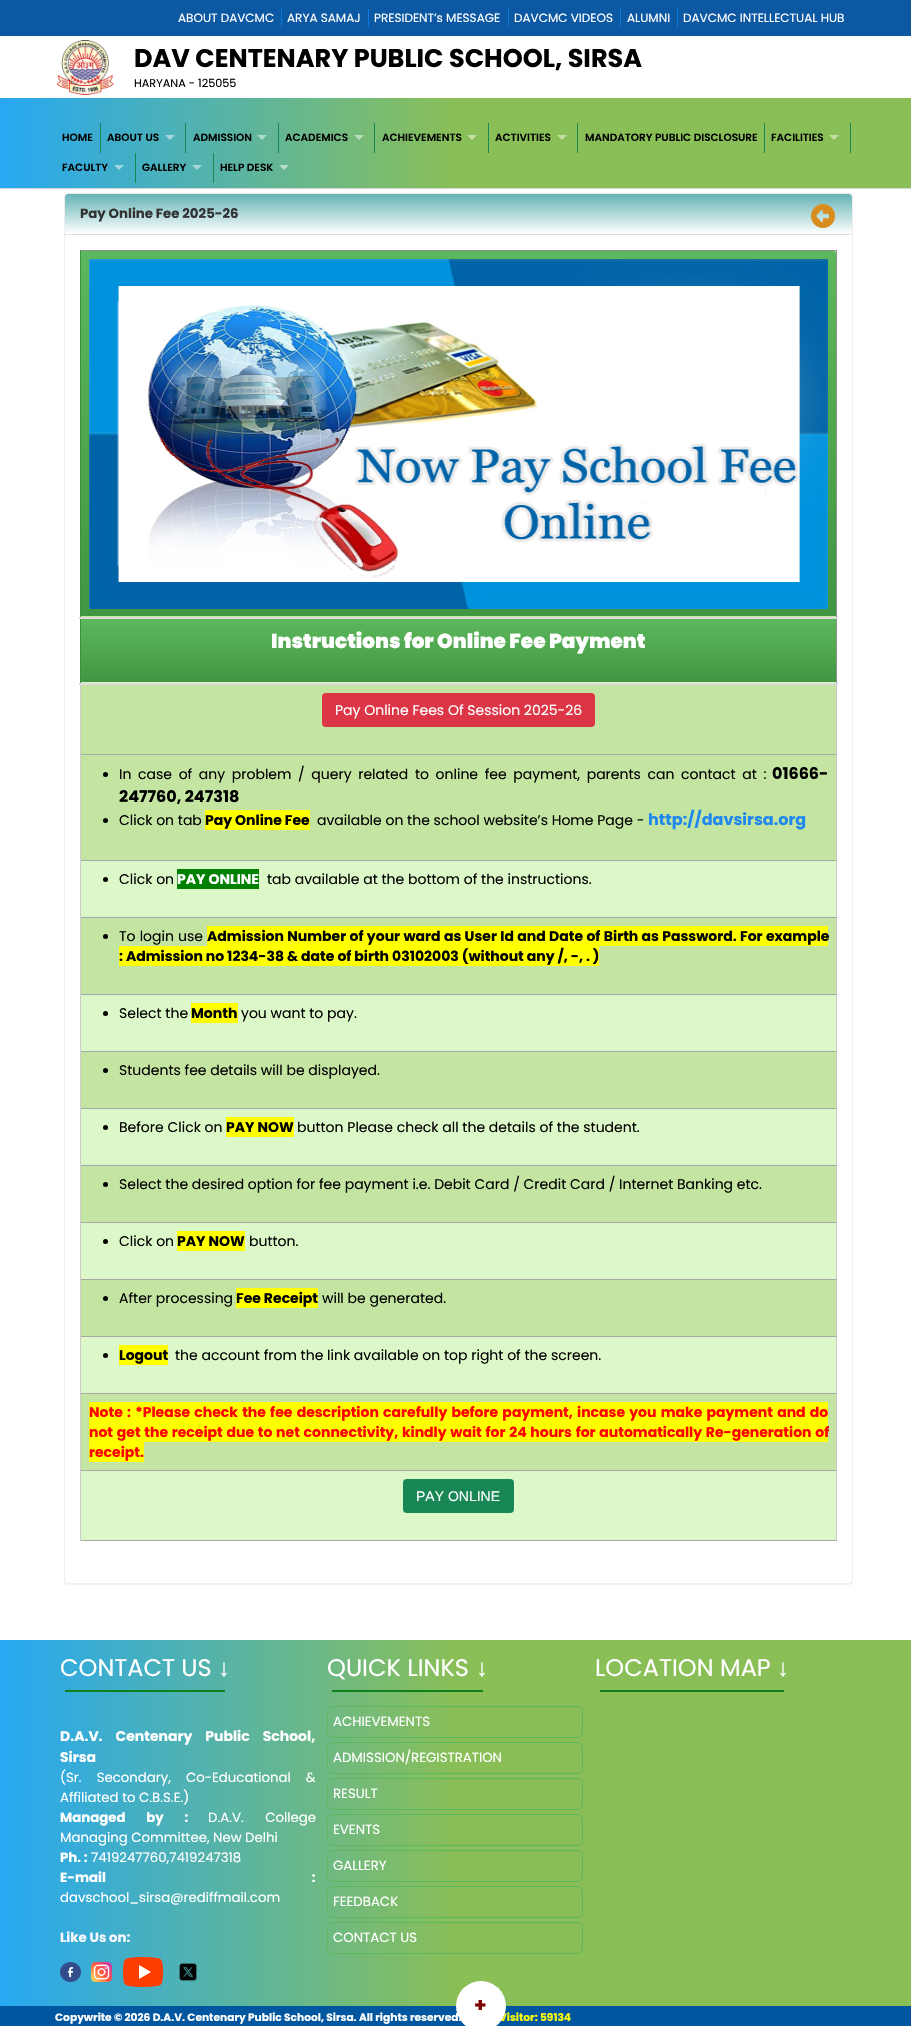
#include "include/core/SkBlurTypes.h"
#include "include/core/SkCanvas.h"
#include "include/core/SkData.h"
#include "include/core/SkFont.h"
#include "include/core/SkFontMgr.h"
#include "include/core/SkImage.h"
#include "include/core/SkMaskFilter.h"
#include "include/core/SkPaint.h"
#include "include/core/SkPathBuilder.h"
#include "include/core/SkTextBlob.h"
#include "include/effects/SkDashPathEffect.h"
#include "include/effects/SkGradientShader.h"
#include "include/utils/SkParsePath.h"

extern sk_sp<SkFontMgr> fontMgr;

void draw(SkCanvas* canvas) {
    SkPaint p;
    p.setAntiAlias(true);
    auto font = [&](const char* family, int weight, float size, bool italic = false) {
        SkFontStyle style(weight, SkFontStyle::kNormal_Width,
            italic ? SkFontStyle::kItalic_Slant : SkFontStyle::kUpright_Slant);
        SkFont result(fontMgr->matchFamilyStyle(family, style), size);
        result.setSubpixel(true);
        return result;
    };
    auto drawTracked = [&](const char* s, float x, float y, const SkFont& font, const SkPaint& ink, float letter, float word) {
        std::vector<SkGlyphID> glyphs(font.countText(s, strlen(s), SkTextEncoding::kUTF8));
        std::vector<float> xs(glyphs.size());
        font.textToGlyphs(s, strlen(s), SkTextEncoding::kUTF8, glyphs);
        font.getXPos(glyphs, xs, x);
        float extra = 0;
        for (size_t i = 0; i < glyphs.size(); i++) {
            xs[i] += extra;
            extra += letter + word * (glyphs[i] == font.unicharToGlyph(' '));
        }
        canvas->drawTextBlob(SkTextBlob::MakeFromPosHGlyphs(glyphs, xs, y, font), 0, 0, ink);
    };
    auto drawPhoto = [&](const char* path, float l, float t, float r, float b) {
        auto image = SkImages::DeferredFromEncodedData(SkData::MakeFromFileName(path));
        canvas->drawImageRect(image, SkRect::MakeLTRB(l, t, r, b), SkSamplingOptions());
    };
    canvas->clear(0xFFFFFFFF);
    p.setColor(0xFF0C58A2);
    canvas->drawRect(SkRect::MakeLTRB(0, 0, 911, 36), p);
    p.setColor(0xFF087AE1);
    canvas->drawRect(SkRect::MakeLTRB(281, 9, 282, 27), p);
    auto font1 = font("Poppins", 400, 12);
    p.setColor(0xFFFFFFFF);
    canvas->drawString("ABOUT DAVCMC", 178, 22, font1, p);
    p.setColor(0xFF087AE1);
    canvas->drawRect(SkRect::MakeLTRB(368, 9, 369, 27), p);
    p.setColor(0xFFFFFFFF);
    canvas->drawString("ARYA SAMAJ", 287, 22, font1, p);
    p.setColor(0xFF087AE1);
    canvas->drawRect(SkRect::MakeLTRB(508, 9, 509, 27), p);
    p.setColor(0xFFFFFFFF);
    canvas->drawString("PRESIDENT’s MESSAGE", 374, 22, font1, p);
    p.setColor(0xFF087AE1);
    canvas->drawRect(SkRect::MakeLTRB(620, 9, 621, 27), p);
    p.setColor(0xFFFFFFFF);
    canvas->drawString("DAVCMC VIDEOS", 514, 22, font1, p);
    p.setColor(0xFF087AE1);
    canvas->drawRect(SkRect::MakeLTRB(677, 9, 678, 27), p);
    p.setColor(0xFFFFFFFF);
    canvas->drawString("ALUMNI", 627, 22, font1, p);
    canvas->drawString("DAVCMC INTELLECTUAL HUB", 683, 22, font1, p);
    drawPhoto("media/1.png", 56, 40, 114, 95);
    auto font2 = font("Poppins", 700, 25.5f);
    p.setColor(0xFF000000);
    canvas->drawString("DAV CENTENARY PUBLIC SCHOOL, SIRSA", 134, 67, font2, p);
    auto font3 = font("Poppins", 400, 11.25f);
    canvas->drawString("HARYANA - 125055", 134, 87, font3, p);
    {
        const SkColor colors[] = {0xFF26A8F2, 0xFF8ABF57};
        const float stops[] = {0, 0.5f};
        const SkPoint ends[] = {{0, 143}, {911, 143}};
        p.setShader(SkGradientShader::MakeLinear(ends, colors, stops, 2, SkTileMode::kClamp));
        p.setAlpha(255);
    }
    canvas->drawRect(SkRect::MakeLTRB(0, 98, 911, 188), p);
    p.setShader(nullptr);
    p.setColor(0xFFD3D3D4);
    canvas->drawRect(SkRect::MakeLTRB(0, 188, 911, 189), p);
    p.setColor(0xFF198754);
    canvas->drawRect(SkRect::MakeLTRB(100, 123, 101, 153), p);
    auto font4 = font("Poppins", 600, 10.5f);
    p.setColor(0xFF000000);
    canvas->drawString("HOME", 62, 141, font4, p);
    p.setColor(0xFF198754);
    canvas->drawRect(SkRect::MakeLTRB(185, 123, 186, 153), p);
    p.setColor(0xFF000000);
    canvas->drawString("ABOUT US", 107, 141, font4, p);
    p.setColor(0xFFA5D8DC);
    canvas->drawPath(SkPathBuilder().moveTo(165, 135).lineTo(175, 135).lineTo(170, 140).close().detach(), p);
    p.setColor(0xFF198754);
    canvas->drawRect(SkRect::MakeLTRB(278, 123, 279, 153), p);
    p.setColor(0xFF000000);
    canvas->drawString("ADMISSION", 193, 141, font4, p);
    p.setColor(0xFFAFDACC);
    canvas->drawPath(SkPathBuilder().moveTo(257, 135).lineTo(267, 135).lineTo(262, 140).close().detach(), p);
    p.setColor(0xFF198754);
    canvas->drawRect(SkRect::MakeLTRB(374, 123, 375, 153), p);
    p.setColor(0xFF000000);
    canvas->drawString("ACADEMICS", 285, 141, font4, p);
    p.setColor(0xFFBADDBB);
    canvas->drawPath(SkPathBuilder().moveTo(354, 135).lineTo(364, 135).lineTo(359, 140).close().detach(), p);
    p.setColor(0xFF198754);
    canvas->drawRect(SkRect::MakeLTRB(488, 123, 489, 153), p);
    p.setColor(0xFF000000);
    canvas->drawString("ACHIEVEMENTS", 382, 141, font4, p);
    p.setColor(0xFFC5DFAB);
    canvas->drawPath(SkPathBuilder().moveTo(467, 135).lineTo(477, 135).lineTo(472, 140).close().detach(), p);
    p.setColor(0xFF198754);
    canvas->drawRect(SkRect::MakeLTRB(577, 123, 578, 153), p);
    p.setColor(0xFF000000);
    canvas->drawString("ACTIVITIES", 495, 141, font4, p);
    p.setColor(0xFFC5DFAB);
    canvas->drawPath(SkPathBuilder().moveTo(557, 135).lineTo(567, 135).lineTo(562, 140).close().detach(), p);
    p.setColor(0xFF198754);
    canvas->drawRect(SkRect::MakeLTRB(764, 123, 765, 153), p);
    p.setColor(0xFF000000);
    canvas->drawString("MANDATORY PUBLIC DISCLOSURE", 585, 141, font4, p);
    p.setColor(0xFF198754);
    canvas->drawRect(SkRect::MakeLTRB(850, 123, 851, 153), p);
    p.setColor(0xFF000000);
    canvas->drawString("FACILITIES", 771, 141, font4, p);
    p.setColor(0xFFC5DFAB);
    canvas->drawPath(SkPathBuilder().moveTo(829, 135).lineTo(839, 135).lineTo(834, 140).close().detach(), p);
    p.setColor(0xFF198754);
    canvas->drawRect(SkRect::MakeLTRB(135, 153, 136, 183), p);
    p.setColor(0xFF000000);
    canvas->drawString("FACULTY", 62, 171, font4, p);
    p.setColor(0x80FFFFFF);
    canvas->drawPath(SkPathBuilder().moveTo(114, 165).lineTo(124, 165).lineTo(119, 170).close().detach(), p);
    p.setColor(0xFF198754);
    canvas->drawRect(SkRect::MakeLTRB(213, 153, 214, 183), p);
    p.setColor(0xFF000000);
    canvas->drawString("GALLERY", 142, 171, font4, p);
    p.setColor(0xFFA8D9D7);
    canvas->drawPath(SkPathBuilder().moveTo(192, 165).lineTo(202, 165).lineTo(197, 170).close().detach(), p);
    p.setColor(0xFF000000);
    canvas->drawString("HELP DESK", 220, 171, font4, p);
    p.setColor(0x80FFFFFF);
    canvas->drawPath(SkPathBuilder().moveTo(279, 165).lineTo(289, 165).lineTo(284, 170).close().detach(), p);
    p.setColor(0x0D000000);
    p.setMaskFilter(SkMaskFilter::MakeBlur(kNormal_SkBlurStyle, 0.5f));
    canvas->drawRoundRect(SkRect::MakeLTRB(64, 194, 853, 1585), 4, 4, p);
    p.setMaskFilter(nullptr);
    p.setColor(0xFFFFFFFF);
    canvas->drawRoundRect(SkRect::MakeLTRB(64.5f, 193.5f, 852.5f, 1583.5f), 3.5f, 3.5f, p);
    p.setStyle(SkPaint::kStroke_Style);
    p.setStrokeWidth(1);
    p.setColor(0xFFEEEEEE);
    canvas->drawRoundRect(SkRect::MakeLTRB(64.5f, 193.5f, 852.5f, 1583.5f), 3.5f, 3.5f, p);
    p.setStyle(SkPaint::kFill_Style);
    {
        const SkColor colors[] = {0xFF64B3B4, 0xFFFFFFFF};
        const float stops[] = {0, 1};
        const SkPoint ends[] = {{459, 194}, {459, 234}};
        p.setShader(SkGradientShader::MakeLinear(ends, colors, stops, 2, SkTileMode::kClamp));
        p.setAlpha(255);
    }
    canvas->drawPath(SkPathBuilder().moveTo(68, 194).lineTo(849, 194).cubicTo(850.5f, 194, 852, 195.5f, 852, 197).lineTo(852, 234).lineTo(65, 234).lineTo(65, 197).cubicTo(65, 195.5f, 66.5f, 194, 68, 194).close().detach(), p);
    p.setShader(nullptr);
    p.setColor(0xFFDDDDDD);
    canvas->drawRect(SkRect::MakeLTRB(65, 234, 852, 235), p);
    auto font5 = font("Poppins", 700, 13.3f);
    p.setColor(0xFF333333);
    canvas->drawString("Pay Online Fee 2025-26", 80, 218, font5, p);
    drawPhoto("media/2.png", 811, 204, 835, 228);
    p.setColor(0xFF928E8E);
    canvas->drawRect(SkRect::MakeLTRB(80, 250, 837, 251), p);
    p.setColor(0xFFC4E4A1);
    canvas->drawRect(SkRect::MakeLTRB(81, 251, 836, 617), p);
    {
        const SkColor colors[] = {0xFF5CB85C, 0xFF419641};
        const float stops[] = {0, 1};
        const SkPoint ends[] = {{459, 251}, {459, 616}};
        p.setShader(SkGradientShader::MakeLinear(ends, colors, stops, 2, SkTileMode::kClamp));
        p.setAlpha(255);
    }
    canvas->drawPath(SkPathBuilder().moveTo(80, 251).lineTo(832, 251).cubicTo(835, 251, 837, 253, 837, 256).lineTo(837, 616).lineTo(80, 616).close().detach(), p);
    p.setShader(nullptr);
    {
        const struct { float l, t, r, b; SkColor color; } items[] = {
            {836, 250, 837, 683, 0xFF928E8E},
            {836, 683, 837, 1541, 0xFFCCCCCC},
            {80, 1540, 837, 1541, 0xFFA7A9A7},
            {80, 1470, 81, 1541, 0xFFCCCCCC},
            {80, 1470, 837, 1471, 0xFFA7A9A7},
            {80, 1393, 81, 1471, 0xFFCCCCCC},
            {80, 1393, 837, 1394, 0xFFA7A9A7},
            {80, 1336, 81, 1394, 0xFFCCCCCC},
            {80, 1336, 837, 1337, 0xFFA7A9A7},
            {80, 1279, 81, 1337, 0xFFCCCCCC},
            {80, 1279, 837, 1280, 0xFFA7A9A7},
            {80, 1222, 81, 1280, 0xFFCCCCCC},
            {80, 1222, 837, 1223, 0xFFA7A9A7},
            {80, 1165, 81, 1223, 0xFFCCCCCC},
            {80, 1165, 837, 1166, 0xFFA7A9A7},
            {80, 1108, 81, 1166, 0xFFCCCCCC},
            {80, 1108, 837, 1109, 0xFFA7A9A7},
            {80, 1051, 81, 1109, 0xFFCCCCCC},
            {80, 1051, 837, 1052, 0xFFA7A9A7},
            {80, 994, 81, 1052, 0xFFCCCCCC},
            {80, 994, 837, 995, 0xFFA7A9A7},
            {80, 917, 81, 995, 0xFFCCCCCC},
            {80, 917, 837, 918, 0xFFA7A9A7},
            {80, 860, 81, 918, 0xFFCCCCCC},
            {80, 860, 837, 861, 0xFFA7A9A7},
            {80, 754, 81, 861, 0xFFCCCCCC},
            {80, 754, 837, 755, 0xFFA7A9A7},
            {80, 683, 81, 755, 0xFFCCCCCC},
            {80, 250, 81, 684, 0xFF3E8F3E},
            {79, 617, 838, 619, 0xFFDDDDDD},
        };
        for (auto [l, t, r, b, color] : items) {
            p.setColor(color);
            canvas->drawRect(SkRect::MakeLTRB(l, t, r, b), p);
        }
    }
    drawPhoto("media/3.png", 89, 259, 828, 609);
    p.setColor(0xFFDCF7C8);
    canvas->drawRect(SkRect::MakeLTRB(81, 619, 836, 683), p);
    {
        const SkColor colors[] = {0xFF5CB85C, 0xFF419641};
        const float stops[] = {0, 1};
        const SkPoint ends[] = {{459, 619}, {459, 682}};
        p.setShader(SkGradientShader::MakeLinear(ends, colors, stops, 2, SkTileMode::kClamp));
        p.setAlpha(255);
    }
    canvas->drawRect(SkRect::MakeLTRB(81, 619, 836, 682), p);
    p.setShader(nullptr);
    p.setColor(0xFFDDDDDD);
    canvas->drawRect(SkRect::MakeLTRB(79, 683, 838, 685), p);
    auto font6 = font("Poppins", 900, 20);
    p.setColor(0xFFFFFFFF);
    canvas->drawString("Instructions for Online Fee Payment", 271, 648, font6, p);
    p.setColor(0xFFC4E4A1);
    canvas->drawRect(SkRect::MakeLTRB(81, 685, 836, 754), p);
    p.setColor(0xFFDC3545);
    canvas->drawRoundRect(SkRect::MakeLTRB(322, 693, 595, 727), 4, 4, p);
    auto font7 = font("Poppins", 400, 14);
    p.setColor(0xFFFFFFFF);
    canvas->drawString("Pay Online Fees Of Session 2025-26", 335, 715, font7, p);
    p.setColor(0xFFC4E4A1);
    canvas->drawRect(SkRect::MakeLTRB(81, 755, 836, 860), p);
    p.setColor(0xFF000000);
    canvas->drawCircle(105.5f, 774.5f, 2.5f, p);
    drawTracked("In case of any problem / query related to online fee payment, parents can contact at :", 119, 779, font7, p, 0, 2.9f);
    auto font8 = font("Poppins", 700, 16);
    canvas->drawString("01666-", 772, 779, font8, p);
    canvas->drawString("247760, 247318", 119, 802, font8, p);
    canvas->drawCircle(105.5f, 820.5f, 2.5f, p);
    canvas->drawString("Click on tab", 119, 825, font7, p);
    p.setColor(0xFFFFFF00);
    canvas->drawRect(SkRect::MakeLTRB(205, 810, 310, 830), p);
    auto font9 = font("Poppins", 700, 14);
    p.setColor(0xFF000000);
    canvas->drawString("Pay Online Fee", 205, 825, font9, p);
    canvas->drawString("available on the school website’s Home Page -", 317, 825, font7, p);
    p.setColor(0xFF1E87F0);
    canvas->drawString("http://davsirsa.org", 648, 825, font8, p);
    p.setColor(0xFFDCF7C8);
    canvas->drawRect(SkRect::MakeLTRB(81, 861, 836, 917), p);
    p.setColor(0xFF000000);
    canvas->drawCircle(105.5f, 879.5f, 2.5f, p);
    canvas->drawString("Click on", 119, 884, font7, p);
    p.setColor(0xFF008000);
    canvas->drawRect(SkRect::MakeLTRB(177, 869, 259, 889), p);
    p.setColor(0xFFFFFFFF);
    canvas->drawString("PAY ONLINE", 177, 884, font9, p);
    p.setColor(0xFF000000);
    canvas->drawString("tab available at the bottom of the instructions.", 267, 884, font7, p);
    p.setColor(0xFFC4E4A1);
    canvas->drawRect(SkRect::MakeLTRB(81, 918, 836, 994), p);
    p.setColor(0xFF000000);
    canvas->drawCircle(105.5f, 936.5f, 2.5f, p);
    drawTracked("To login use", 119, 941, font7, p, 0, 0.4f);
    p.setColor(0xFFFFFF00);
    canvas->drawRect(SkRect::MakeLTRB(207, 926, 828, 946), p);
    p.setColor(0xFF000000);
    drawTracked("Admission Number of your ward as User Id and Date of Birth as Password. For example", 207, 941, font9, p, 0, 0.4f);
    p.setColor(0xFFFFFF00);
    canvas->drawRect(SkRect::MakeLTRB(119, 946, 599, 966), p);
    p.setColor(0xFF000000);
    canvas->drawString(": Admission no 1234-38 & date of birth 03102003 (without any /, -, . )", 119, 961, font9, p);
    p.setColor(0xFFDCF7C8);
    canvas->drawRect(SkRect::MakeLTRB(81, 995, 836, 1051), p);
    p.setColor(0xFF000000);
    canvas->drawCircle(105.5f, 1013.5f, 2.5f, p);
    canvas->drawString("Select the", 119, 1018, font7, p);
    p.setColor(0xFFFFFF00);
    canvas->drawRect(SkRect::MakeLTRB(191, 1003, 238, 1023), p);
    p.setColor(0xFF000000);
    canvas->drawString("Month", 191, 1018, font9, p);
    canvas->drawString("you want to pay.", 241, 1018, font7, p);
    p.setColor(0xFFC4E4A1);
    canvas->drawRect(SkRect::MakeLTRB(81, 1052, 836, 1108), p);
    p.setColor(0xFF000000);
    canvas->drawCircle(105.5f, 1070.5f, 2.5f, p);
    canvas->drawString("Students fee details will be displayed.", 119, 1075, font7, p);
    p.setColor(0xFFDCF7C8);
    canvas->drawRect(SkRect::MakeLTRB(81, 1109, 836, 1165), p);
    p.setColor(0xFF000000);
    canvas->drawCircle(105.5f, 1127.5f, 2.5f, p);
    canvas->drawString("Before Click on", 119, 1132, font7, p);
    p.setColor(0xFFFFFF00);
    canvas->drawRect(SkRect::MakeLTRB(226, 1117, 294, 1137), p);
    p.setColor(0xFF000000);
    canvas->drawString("PAY NOW", 226, 1132, font9, p);
    canvas->drawString("button Please check all the details of the student.", 297, 1132, font7, p);
    p.setColor(0xFFC4E4A1);
    canvas->drawRect(SkRect::MakeLTRB(81, 1166, 836, 1222), p);
    p.setColor(0xFF000000);
    canvas->drawCircle(105.5f, 1184.5f, 2.5f, p);
    canvas->drawString("Select the desired option for fee payment i.e. Debit Card / Credit Card / Internet Banking etc.", 119, 1189, font7, p);
    p.setColor(0xFFDCF7C8);
    canvas->drawRect(SkRect::MakeLTRB(81, 1223, 836, 1279), p);
    p.setColor(0xFF000000);
    canvas->drawCircle(105.5f, 1241.5f, 2.5f, p);
    canvas->drawString("Click on", 119, 1246, font7, p);
    p.setColor(0xFFFFFF00);
    canvas->drawRect(SkRect::MakeLTRB(177, 1231, 245, 1251), p);
    p.setColor(0xFF000000);
    canvas->drawString("PAY NOW", 177, 1246, font9, p);
    canvas->drawString("button.", 249, 1246, font7, p);
    p.setColor(0xFFC4E4A1);
    canvas->drawRect(SkRect::MakeLTRB(81, 1280, 836, 1336), p);
    p.setColor(0xFF000000);
    canvas->drawCircle(105.5f, 1298.5f, 2.5f, p);
    canvas->drawString("After processing", 119, 1303, font7, p);
    p.setColor(0xFFFFFF00);
    canvas->drawRect(SkRect::MakeLTRB(236, 1288, 318, 1308), p);
    p.setColor(0xFF000000);
    canvas->drawString("Fee Receipt", 236, 1303, font9, p);
    canvas->drawString("will be generated.", 322, 1303, font7, p);
    p.setColor(0xFFDCF7C8);
    canvas->drawRect(SkRect::MakeLTRB(81, 1337, 836, 1393), p);
    p.setColor(0xFF000000);
    canvas->drawCircle(105.5f, 1355.5f, 2.5f, p);
    p.setColor(0xFFFFFF00);
    canvas->drawRect(SkRect::MakeLTRB(119, 1345, 168, 1365), p);
    p.setColor(0xFF000000);
    canvas->drawString("Logout", 119, 1360, font9, p);
    canvas->drawString("the account from the link available on top right of the screen.", 175, 1360, font7, p);
    p.setColor(0xFFC4E4A1);
    canvas->drawRect(SkRect::MakeLTRB(81, 1394, 836, 1470), p);
    p.setColor(0xFFFFFF00);
    canvas->drawRect(SkRect::MakeLTRB(89, 1402, 828, 1442), p);
    p.setColor(0xFFFF0000);
    drawTracked("Note : *Please check the fee description carefully before payment, incase you make payment and do", 89, 1417, font9, p, 0, 1.25f);
    drawTracked("not get the receipt due to net connectivity, kindly wait for 24 hours for automatically Re-generation of", 89, 1437, font9, p, 0, 0.75f);
    p.setColor(0xFFFFFF00);
    canvas->drawRect(SkRect::MakeLTRB(89, 1442, 144, 1462), p);
    p.setColor(0xFFFF0000);
    canvas->drawString("receipt.", 89, 1457, font9, p);
    p.setColor(0xFFDCF7C8);
    canvas->drawRect(SkRect::MakeLTRB(81, 1471, 836, 1540), p);
    p.setColor(0xFF198754);
    canvas->drawRoundRect(SkRect::MakeLTRB(403, 1479, 514, 1513), 4, 4, p);
    auto font10 = font("Liberation Sans", 400, 14);
    p.setColor(0xFFFFFFFF);
    canvas->drawString("PAY ONLINE", 416, 1501, font10, p);
    {
        const SkColor colors[] = {0xFF26A8F2, 0xFF8ABF57};
        const float stops[] = {0, 0.5f};
        const SkPoint ends[] = {{0, 1823}, {911, 1823}};
        p.setShader(SkGradientShader::MakeLinear(ends, colors, stops, 2, SkTileMode::kClamp));
        p.setAlpha(255);
    }
    canvas->drawRect(SkRect::MakeLTRB(0, 1640, 911, 2006), p);
    auto font11 = font("Poppins", 400, 24);
    p.setShader(nullptr);
    p.setColor(0xFFFFFFFF);
    canvas->drawString("CONTACT US", 60, 1676, font11, p);
    auto font12 = font("Liberation Sans", 400, 24);
    canvas->drawString("↓", 218, 1676, font12, p);
    p.setColor(0xFF0E801C);
    canvas->drawRect(SkRect::MakeLTRB(65, 1690, 225, 1692), p);
    p.setColor(0xFFFFFFFF);
    drawTracked("D.A.V. Centenary Public School,", 60, 1741, font9, p, 0, 10);
    canvas->drawString("Sirsa", 60, 1762, font9, p);
    auto font13 = font("Poppins", 400, 13.3f);
    drawTracked("(Sr. Secondary, Co-Educational &", 60, 1782, font13, p, 0, 11.5f);
    canvas->drawString("Affiliated to C.B.S.E.)", 60, 1802, font13, p);
    drawTracked("Managed by :", 60, 1822, font5, p, 0, 18);
    drawTracked("D.A.V. College", 208, 1822, font13, p, 0, 18);
    canvas->drawString("Managing Committee, New Delhi", 60, 1842, font13, p);
    canvas->drawString("Ph. :", 60, 1862, font5, p);
    canvas->drawString("7419247760,7419247318", 91, 1862, font13, p);
    drawTracked("E-mail :", 60, 1882, font5, p, 0, 203);
    canvas->drawString("davschool_sirsa@rediffmail.com", 60, 1902, font13, p);
    p.setColor(0xFFF8F8FF);
    canvas->drawString("Like Us on:", 60, 1942, font5, p);
    drawPhoto("media/4.png", 60, 1962, 81, 1982);
    drawPhoto("media/5.png", 91, 1962, 112, 1982);
    drawPhoto("media/6.png", 123, 1957, 164, 1987);
    drawPhoto("media/7.png", 179, 1963, 197, 1981);
    p.setColor(0xFFFFFFFF);
    canvas->drawString("QUICK LINKS", 327, 1676, font11, p);
    p.setColor(0xFF0E801C);
    canvas->drawRect(SkRect::MakeLTRB(332, 1690, 483, 1692), p);
    p.setColor(0xFFFFFFFF);
    canvas->drawString("↓", 476, 1676, font12, p);
    p.setStyle(SkPaint::kStroke_Style);
    p.setColor(0xFF5CB85C);
    canvas->drawRoundRect(SkRect::MakeLTRB(327.5f, 1706.5f, 582.5f, 1737.5f), 5.5f, 5.5f, p);
    p.setStyle(SkPaint::kFill_Style);
    p.setColor(0xFFFFFFFF);
    canvas->drawString("ACHIEVEMENTS", 333, 1726, font13, p);
    p.setStyle(SkPaint::kStroke_Style);
    p.setColor(0xFF5CB85C);
    canvas->drawRoundRect(SkRect::MakeLTRB(327.5f, 1742.5f, 582.5f, 1773.5f), 5.5f, 5.5f, p);
    p.setStyle(SkPaint::kFill_Style);
    p.setColor(0xFFFFFFFF);
    canvas->drawString("ADMISSION/REGISTRATION", 333, 1762, font13, p);
    p.setStyle(SkPaint::kStroke_Style);
    p.setColor(0xFF5CB85C);
    canvas->drawRoundRect(SkRect::MakeLTRB(327.5f, 1778.5f, 582.5f, 1809.5f), 5.5f, 5.5f, p);
    p.setStyle(SkPaint::kFill_Style);
    p.setColor(0xFFFFFFFF);
    canvas->drawString("RESULT", 333, 1798, font13, p);
    p.setStyle(SkPaint::kStroke_Style);
    p.setColor(0xFF5CB85C);
    canvas->drawRoundRect(SkRect::MakeLTRB(327.5f, 1814.5f, 582.5f, 1845.5f), 5.5f, 5.5f, p);
    p.setStyle(SkPaint::kFill_Style);
    p.setColor(0xFFFFFFFF);
    canvas->drawString("EVENTS", 333, 1834, font13, p);
    p.setStyle(SkPaint::kStroke_Style);
    p.setColor(0xFF5CB85C);
    canvas->drawRoundRect(SkRect::MakeLTRB(327.5f, 1850.5f, 582.5f, 1881.5f), 5.5f, 5.5f, p);
    p.setStyle(SkPaint::kFill_Style);
    p.setColor(0xFFFFFFFF);
    canvas->drawString("GALLERY", 333, 1870, font13, p);
    p.setStyle(SkPaint::kStroke_Style);
    p.setColor(0xFF5CB85C);
    canvas->drawRoundRect(SkRect::MakeLTRB(327.5f, 1886.5f, 582.5f, 1917.5f), 5.5f, 5.5f, p);
    p.setStyle(SkPaint::kFill_Style);
    p.setColor(0xFFFFFFFF);
    canvas->drawString("FEEDBACK", 333, 1906, font13, p);
    p.setStyle(SkPaint::kStroke_Style);
    p.setColor(0xFF5CB85C);
    canvas->drawRoundRect(SkRect::MakeLTRB(327.5f, 1922.5f, 582.5f, 1953.5f), 5.5f, 5.5f, p);
    p.setStyle(SkPaint::kFill_Style);
    p.setColor(0xFFFFFFFF);
    canvas->drawString("CONTACT US", 333, 1942, font13, p);
    canvas->drawString("LOCATION MAP", 595, 1676, font11, p);
    canvas->drawString("↓", 777, 1676, font12, p);
    p.setColor(0xFF0E801C);
    canvas->drawRect(SkRect::MakeLTRB(600, 1690, 784, 1692), p);
    p.setColor(0xFF00579F);
    canvas->drawRect(SkRect::MakeLTRB(0, 2006, 911, 2026), p);
    auto font14 = font("Poppins", 700, 10.65f);
    p.setColor(0xFFFFFF09);
    canvas->drawString("Visitor: 59134", 499, 2021, font14, p);
    p.setColor(0xFFFFFFFF);
    canvas->drawCircle(481, 2006, 25, p);
    auto font15 = font("Poppins", 700, 20);
    p.setColor(0xFF800000);
    canvas->drawString("+", 474, 2012, font15, p);
    p.setColor(0xFFFFFFFF);
    canvas->drawString("Copywrite © 2026 D.A.V. Centenary Public School, Sirsa. All rights reserved.", 55, 2021, font14, p);
}
